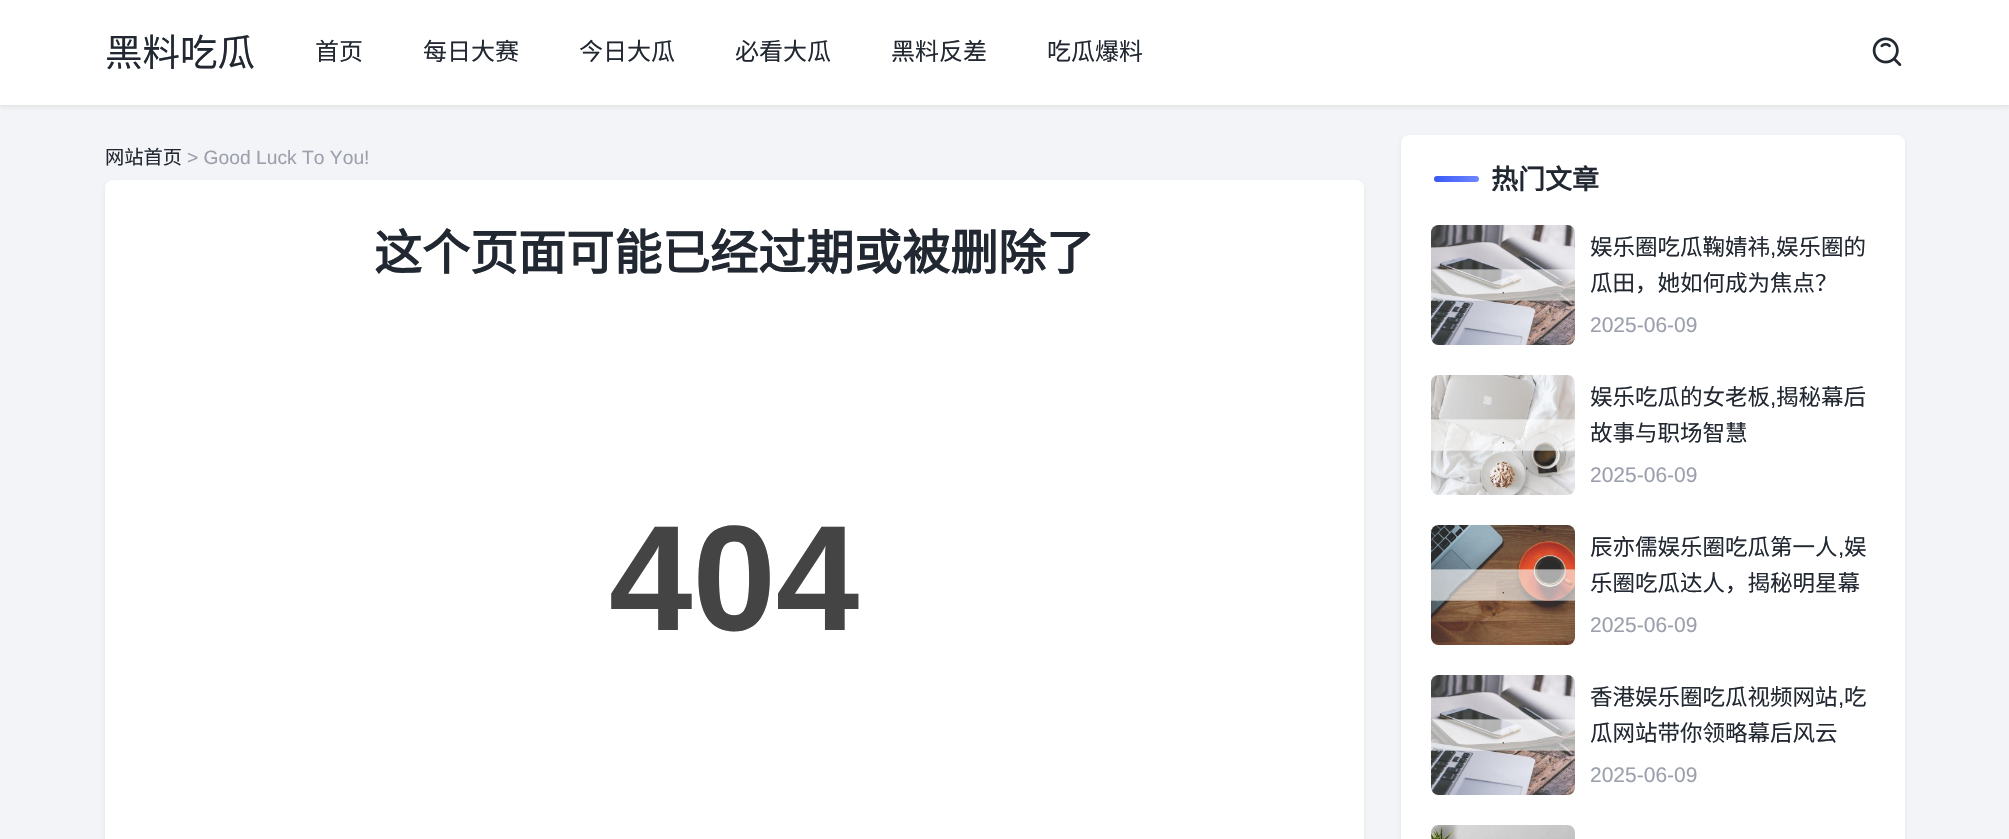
#include "include/core/SkBlurTypes.h"
#include "include/core/SkCanvas.h"
#include "include/core/SkData.h"
#include "include/core/SkFont.h"
#include "include/core/SkFontMgr.h"
#include "include/core/SkImage.h"
#include "include/core/SkMaskFilter.h"
#include "include/core/SkPaint.h"
#include "include/core/SkPathBuilder.h"
#include "include/core/SkTextBlob.h"
#include "include/effects/SkDashPathEffect.h"
#include "include/effects/SkGradientShader.h"
#include "include/utils/SkParsePath.h"

extern sk_sp<SkFontMgr> fontMgr;

void draw(SkCanvas* canvas) {
    SkPaint p;
    p.setAntiAlias(true);
    auto font = [&](const char* family, int weight, float size, bool italic = false) {
        SkFontStyle style(weight, SkFontStyle::kNormal_Width,
            italic ? SkFontStyle::kItalic_Slant : SkFontStyle::kUpright_Slant);
        SkFont result(fontMgr->matchFamilyStyle(family, style), size);
        result.setSubpixel(true);
        return result;
    };
    auto drawPhoto = [&](const char* path, float l, float t, float r, float b) {
        auto image = SkImages::DeferredFromEncodedData(SkData::MakeFromFileName(path));
        canvas->drawImageRect(image, SkRect::MakeLTRB(l, t, r, b), SkSamplingOptions());
    };
    canvas->clear(0xFFF3F4F7);
    p.setColor(0x389E9E9E);
    p.setMaskFilter(SkMaskFilter::MakeBlur(kNormal_SkBlurStyle, 2));
    canvas->drawRect(SkRect::MakeLTRB(0, 2, 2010, 107), p);
    p.setMaskFilter(nullptr);
    p.setColor(0xFFFFFFFF);
    canvas->drawRect(SkRect::MakeLTRB(0, 0, 2009, 105), p);
    auto font1 = font("Noto Sans CJK SC", 400, 37.5f);
    p.setColor(0xFF222831);
    canvas->drawString("黑料吃瓜", 105, 66, font1, p);
    auto font2 = font("Noto Sans CJK SC", 400, 24);
    {
        const struct { const char* s; float x, y; } items[] = {
            {"首页", 315, 60},
            {"每日大赛", 423, 60},
            {"今日大瓜", 579, 60},
            {"必看大瓜", 735, 60},
            {"黑料反差", 891, 60},
            {"吃瓜爆料", 1047, 60},
        };
        for (auto [s, x, y] : items) {
            canvas->drawString(s, x, y, font2, p);
        }
    }
    drawPhoto("media/1.png", 1872, 37, 1902, 66);
    auto font3 = font("Noto Sans CJK SC", 400, 19.25f);
    canvas->drawString("网站首页", 105, 164, font3, p);
    auto font4 = font("Liberation Sans", 400, 19.25f);
    p.setColor(0xFF9CA0AD);
    canvas->drawString("> Good Luck To You!", 187, 164, font4, p);
    p.setColor(0x389E9E9E);
    p.setMaskFilter(SkMaskFilter::MakeBlur(kNormal_SkBlurStyle, 2));
    canvas->drawRoundRect(SkRect::MakeLTRB(105, 182, 1364, 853), 8, 8, p);
    p.setMaskFilter(nullptr);
    p.setColor(0xFFFFFFFF);
    canvas->drawRoundRect(SkRect::MakeLTRB(105, 180, 1364, 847), 8, 8, p);
    auto font5 = font("Noto Sans CJK SC", 700, 48);
    p.setColor(0xFF222831);
    canvas->drawString("这个页面可能已经过期或被删除了", 374, 270, font5, p);
    auto font6 = font("Liberation Sans", 700, 150);
    p.setColor(0xFF444444);
    canvas->drawString("404", 609, 630, font6, p);
    p.setColor(0x389E9E9E);
    p.setMaskFilter(SkMaskFilter::MakeBlur(kNormal_SkBlurStyle, 2));
    canvas->drawRoundRect(SkRect::MakeLTRB(1401, 137, 1905, 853), 8, 8, p);
    p.setMaskFilter(nullptr);
    p.setColor(0xFFFFFFFF);
    canvas->drawRoundRect(SkRect::MakeLTRB(1401, 135, 1905, 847), 8, 8, p);
    {
        const SkColor colors[] = {0xFF3858F6, 0xFF6E86FF, 0xFF8068FF, 0xFF3858F6};
        const float stops[] = {0, 0.33f, 0.67f, 1};
        const SkPoint ends[] = {{1434, 179}, {1569, 179}};
        p.setShader(SkGradientShader::MakeLinear(ends, colors, stops, 4, SkTileMode::kClamp));
        p.setAlpha(255);
    }
    canvas->drawRoundRect(SkRect::MakeLTRB(1434, 176, 1479, 182), 3, 3, p);
    auto font7 = font("Noto Sans CJK SC", 700, 27);
    p.setShader(nullptr);
    p.setColor(0xFF222831);
    canvas->drawString("热门文章", 1491, 189, font7, p);
    drawPhoto("media/2.png", 1431, 225, 1575, 345);
    auto font8 = font("Noto Sans CJK SC", 400, 22.5f);
    canvas->drawString("娱乐圈吃瓜鞠婧祎", 1590, 255, font8, p);
    auto font9 = font("Liberation Sans", 400, 22.5f);
    canvas->drawString(",", 1770, 255, font9, p);
    canvas->drawString("娱乐圈的", 1776, 255, font8, p);
    canvas->drawString("瓜田，她如何成为焦点？", 1590, 291, font8, p);
    auto font10 = font("Liberation Sans", 400, 21);
    p.setColor(0xFF9CA0AD);
    canvas->drawString("2025-06-09", 1590, 332, font10, p);
    drawPhoto("media/3.png", 1431, 375, 1575, 495);
    p.setColor(0xFF222831);
    canvas->drawString("娱乐吃瓜的女老板", 1590, 405, font8, p);
    canvas->drawString(",", 1770, 405, font9, p);
    canvas->drawString("揭秘幕后", 1776, 405, font8, p);
    canvas->drawString("故事与职场智慧", 1590, 441, font8, p);
    p.setColor(0xFF9CA0AD);
    canvas->drawString("2025-06-09", 1590, 482, font10, p);
    drawPhoto("media/4.png", 1431, 525, 1575, 645);
    p.setColor(0xFF222831);
    canvas->drawString("辰亦儒娱乐圈吃瓜第一人", 1590, 555, font8, p);
    canvas->drawString(",", 1838, 555, font9, p);
    canvas->drawString("娱", 1844, 555, font8, p);
    canvas->drawString("乐圈吃瓜达人，揭秘明星幕", 1590, 591, font8, p);
    p.setColor(0xFF9CA0AD);
    canvas->drawString("2025-06-09", 1590, 632, font10, p);
    drawPhoto("media/5.png", 1431, 675, 1575, 795);
    p.setColor(0xFF222831);
    canvas->drawString("香港娱乐圈吃瓜视频网站", 1590, 705, font8, p);
    canvas->drawString(",", 1838, 705, font9, p);
    canvas->drawString("吃", 1844, 705, font8, p);
    canvas->drawString("瓜网站带你领略幕后风云", 1590, 741, font8, p);
    p.setColor(0xFF9CA0AD);
    canvas->drawString("2025-06-09", 1590, 782, font10, p);
    drawPhoto("media/6.png", 1431, 825, 1575, 839);
}
